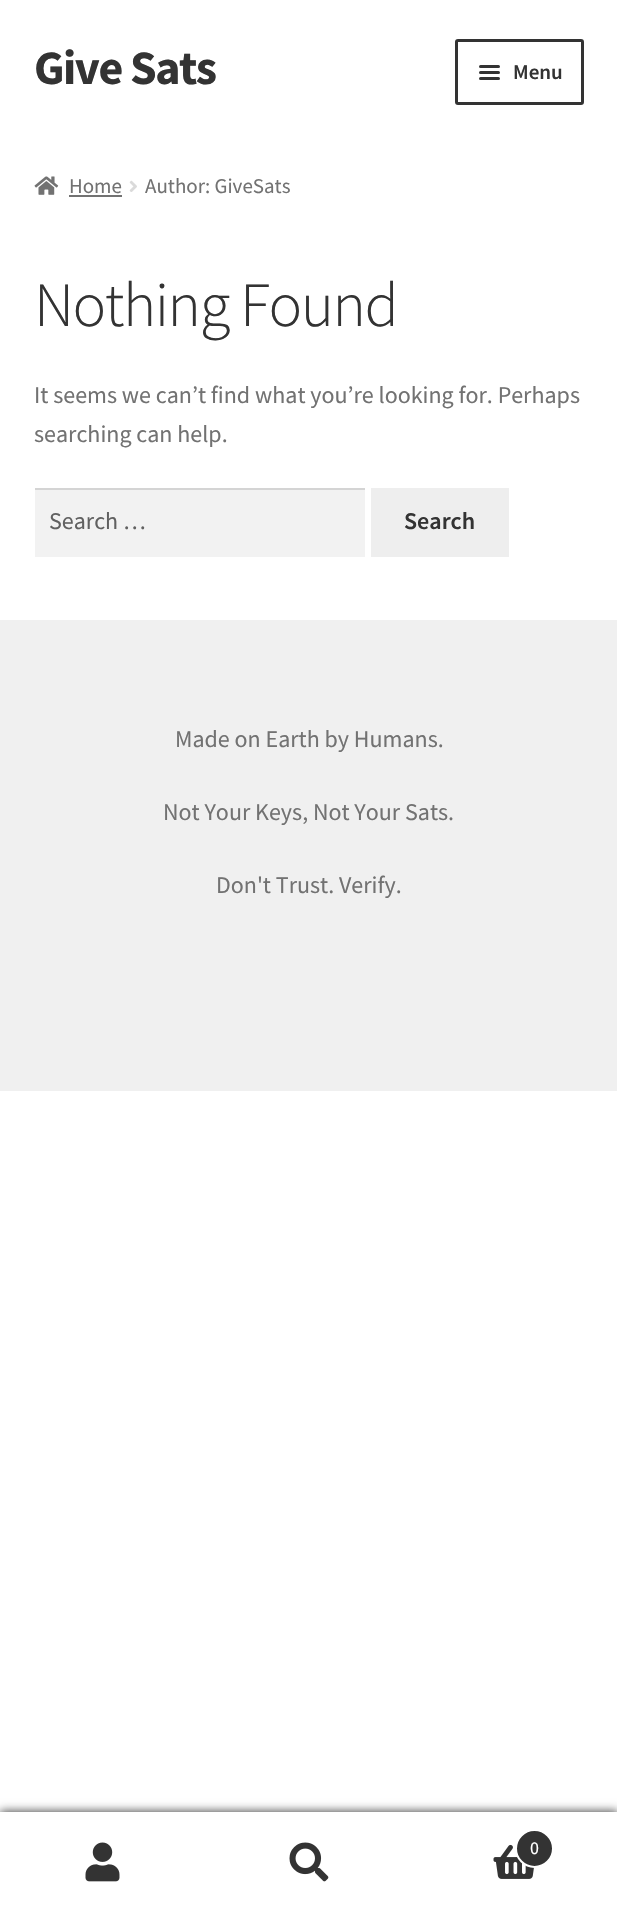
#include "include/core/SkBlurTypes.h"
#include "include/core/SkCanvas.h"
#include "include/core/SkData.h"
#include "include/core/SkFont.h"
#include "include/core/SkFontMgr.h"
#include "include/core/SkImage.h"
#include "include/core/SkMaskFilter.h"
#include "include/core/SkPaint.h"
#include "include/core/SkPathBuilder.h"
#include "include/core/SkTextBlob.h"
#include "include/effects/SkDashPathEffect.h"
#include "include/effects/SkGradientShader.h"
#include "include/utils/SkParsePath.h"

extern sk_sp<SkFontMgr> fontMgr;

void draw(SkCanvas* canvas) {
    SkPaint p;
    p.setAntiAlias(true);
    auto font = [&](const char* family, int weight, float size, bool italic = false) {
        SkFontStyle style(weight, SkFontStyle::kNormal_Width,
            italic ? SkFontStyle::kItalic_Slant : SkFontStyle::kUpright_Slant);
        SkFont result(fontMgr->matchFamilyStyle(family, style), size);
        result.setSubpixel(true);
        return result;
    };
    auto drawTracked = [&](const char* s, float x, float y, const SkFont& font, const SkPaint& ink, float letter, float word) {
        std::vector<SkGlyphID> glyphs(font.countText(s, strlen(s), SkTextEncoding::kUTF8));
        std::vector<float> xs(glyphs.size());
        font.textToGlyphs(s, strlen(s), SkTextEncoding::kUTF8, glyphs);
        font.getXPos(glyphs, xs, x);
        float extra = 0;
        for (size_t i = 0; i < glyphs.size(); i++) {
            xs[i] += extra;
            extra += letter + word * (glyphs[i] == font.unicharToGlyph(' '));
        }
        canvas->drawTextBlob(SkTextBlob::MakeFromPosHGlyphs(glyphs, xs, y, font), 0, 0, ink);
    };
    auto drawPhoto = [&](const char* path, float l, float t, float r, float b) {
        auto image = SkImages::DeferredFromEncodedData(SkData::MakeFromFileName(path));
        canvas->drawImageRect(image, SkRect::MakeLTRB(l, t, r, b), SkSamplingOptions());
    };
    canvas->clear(0xFFFFFFFF);
    auto font1 = font("Source Sans Pro", 700, 48);
    p.setColor(0xFF333333);
    drawTracked("Give Sats", 34, 84, font1, p, -1.5f, 0);
    p.setStyle(SkPaint::kStroke_Style);
    p.setStrokeWidth(3);
    canvas->drawRoundRect(SkRect::MakeLTRB(456.5f, 40.5f, 582.5f, 103.5f), 1.5f, 1.5f, p);
    p.setStyle(SkPaint::kFill_Style);
    canvas->drawRoundRect(SkRect::MakeLTRB(479, 65, 500, 68), 1.5f, 1.5f, p);
    canvas->drawRoundRect(SkRect::MakeLTRB(479, 71, 500, 74), 1.5f, 1.5f, p);
    auto font2 = font("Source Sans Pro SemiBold", 600, 21);
    canvas->drawString("Menu", 513, 79, font2, p);
    canvas->drawRoundRect(SkRect::MakeLTRB(479, 77, 500, 80), 1.5f, 1.5f, p);
    drawPhoto("media/1.png", 34, 176, 59, 195);
    auto font3 = font("Source Sans Pro", 400, 21);
    p.setColor(0xFF727272);
    canvas->drawString("Home", 69, 193, font3, p);
    canvas->drawRect(SkRect::MakeLTRB(69, 195, 122, 197), p);
    drawPhoto("media/2.png", 129, 180, 137, 192);
    canvas->drawString("Author: GiveSats", 145, 193, font3, p);
    auto font4 = font("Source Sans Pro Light", 300, 63);
    p.setColor(0xFF333333);
    drawTracked("Nothing Found", 34, 326, font4, p, -1.5f, 0);
    auto font5 = font("Source Sans Pro", 400, 24);
    p.setColor(0xFF727272);
    canvas->drawString("It seems we can’t find what you’re looking for. Perhaps", 34, 403, font5, p);
    canvas->drawString("searching can help.", 34, 442, font5, p);
    p.setColor(0xFFF2F2F2);
    canvas->drawRect(SkRect::MakeLTRB(35, 490, 365, 557), p);
    p.setColor(0xFFD4D4D4);
    canvas->drawRect(SkRect::MakeLTRB(35, 488, 365, 490), p);
    p.setColor(0xFF616161);
    canvas->drawString("Search …", 49, 529, font5, p);
    p.setColor(0xFFEEEEEE);
    canvas->drawRect(SkRect::MakeLTRB(371, 488, 509, 557), p);
    auto font6 = font("Source Sans Pro SemiBold", 600, 24);
    p.setColor(0xFF333333);
    canvas->drawString("Search", 404, 529, font6, p);
    p.setColor(0xFFF0F0F0);
    canvas->drawRect(SkRect::MakeLTRB(0, 620, 617, 1091), p);
    p.setColor(0xFF727272);
    {
        const struct { const char* s; float x, y; } items[] = {
            {"Made on Earth by Humans.", 175, 747},
            {"Not Your Keys, Not Your Sats.", 163, 820},
            {"Don't Trust. Verify.", 216, 893},
        };
        for (auto [s, x, y] : items) {
            canvas->drawString(s, x, y, font5, p);
        }
    }
    p.setColor(0xB3000000);
    p.setMaskFilter(SkMaskFilter::MakeBlur(kNormal_SkBlurStyle, 4.5f));
    canvas->drawRect(SkRect::MakeLTRB(0, 1811, 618, 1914), p);
    p.setMaskFilter(nullptr);
    p.setColor(0xFFFFFFFF);
    canvas->drawRect(SkRect::MakeLTRB(0, 1812, 617, 1913), p);
    drawPhoto("media/3.png", 85, 1842, 120, 1882);
    drawPhoto("media/4.png", 289, 1842, 329, 1882);
    drawPhoto("media/5.png", 493, 1844, 534, 1879);
    p.setColor(0xFF333333);
    canvas->drawCircle(534.5f, 1848.5f, 18.5f, p);
    p.setStyle(SkPaint::kStroke_Style);
    p.setStrokeWidth(2);
    p.setColor(0xFFFFFFFF);
    canvas->drawCircle(534.5f, 1848.5f, 18.5f, p);
    auto font7 = font("Source Sans Pro", 400, 18);
    p.setStyle(SkPaint::kFill_Style);
    canvas->drawString("0", 530, 1854, font7, p);
}
